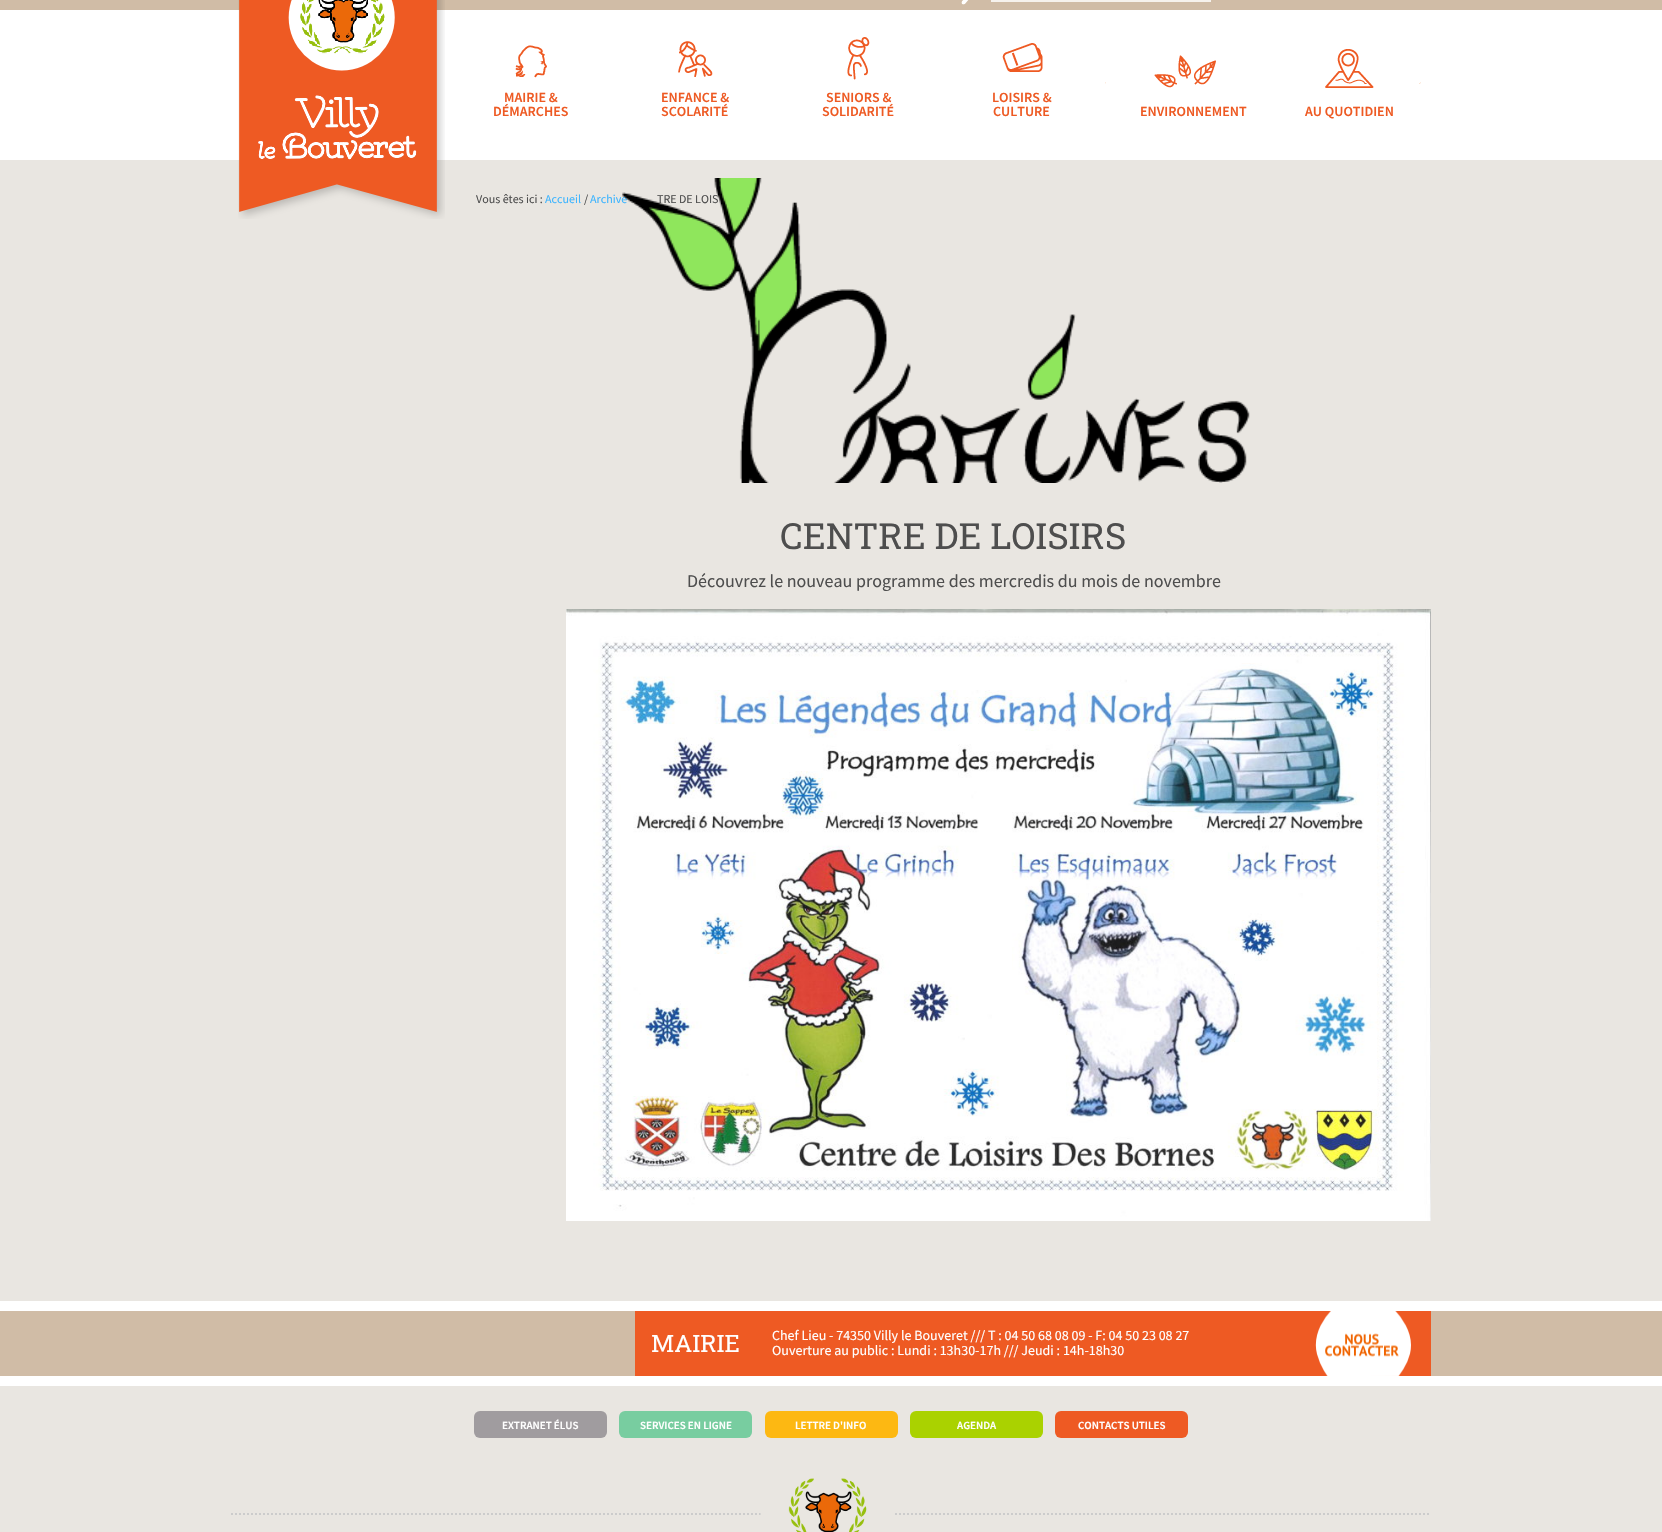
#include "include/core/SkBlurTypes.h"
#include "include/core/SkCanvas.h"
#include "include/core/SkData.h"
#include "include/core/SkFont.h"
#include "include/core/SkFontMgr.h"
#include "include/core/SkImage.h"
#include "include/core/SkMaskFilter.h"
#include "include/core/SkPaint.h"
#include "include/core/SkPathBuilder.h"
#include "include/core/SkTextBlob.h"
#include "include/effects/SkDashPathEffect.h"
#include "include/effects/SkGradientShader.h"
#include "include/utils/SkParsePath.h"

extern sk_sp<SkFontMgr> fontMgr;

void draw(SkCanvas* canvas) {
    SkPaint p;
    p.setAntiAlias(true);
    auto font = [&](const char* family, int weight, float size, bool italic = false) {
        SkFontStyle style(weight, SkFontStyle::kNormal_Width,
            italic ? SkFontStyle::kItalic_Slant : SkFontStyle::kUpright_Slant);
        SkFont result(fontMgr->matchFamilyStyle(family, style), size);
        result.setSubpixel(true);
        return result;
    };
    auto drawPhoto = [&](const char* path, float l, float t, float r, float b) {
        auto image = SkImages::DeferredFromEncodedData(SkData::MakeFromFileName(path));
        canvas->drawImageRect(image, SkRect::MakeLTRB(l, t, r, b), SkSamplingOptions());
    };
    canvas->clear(0xFFE9E6E1);
    p.setColor(0xFFD0BCA6);
    canvas->drawRect(SkRect::MakeLTRB(0, 0, 1662, 10), p);
    p.setColor(0xFFFFFFFF);
    canvas->drawRect(SkRect::MakeLTRB(0, 10, 1662, 160), p);
    drawPhoto("media/1.png", 238, 0, 445, 219);
    drawPhoto("media/2.png", 961, 0, 969, 5);
    p.setColor(0xFFF6F2ED);
    canvas->drawRect(SkRect::MakeLTRB(991, 0, 1211, 2), p);
    drawPhoto("media/3.png", 515, 45, 547, 78);
    auto font1 = font("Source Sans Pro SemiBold", 600, 14);
    p.setColor(0xFFEE5A23);
    canvas->drawString("MAIRIE &", 504, 102, font1, p);
    canvas->drawString("DÉMARCHES", 493, 116, font1, p);
    drawPhoto("media/4.png", 678, 41, 713, 77);
    canvas->drawString("ENFANCE &", 661, 102, font1, p);
    canvas->drawString("SCOLARITÉ", 661, 116, font1, p);
    drawPhoto("media/5.png", 847, 37, 870, 80);
    canvas->drawString("SENIORS &", 826, 102, font1, p);
    canvas->drawString("SOLIDARITÉ", 822, 116, font1, p);
    drawPhoto("media/6.png", 1002, 43, 1043, 72);
    canvas->drawString("LOISIRS &", 992, 102, font1, p);
    canvas->drawString("CULTURE", 993, 116, font1, p);
    drawPhoto("media/7.png", 1105, 55, 1216, 88);
    canvas->drawString("ENVIRONNEMENT", 1140, 116, font1, p);
    drawPhoto("media/8.png", 1325, 49, 1421, 88);
    canvas->drawString("AU QUOTIDIEN", 1305, 116, font1, p);
    auto font2 = font("Source Sans Pro", 400, 12);
    p.setColor(0xFF4E4E4E);
    canvas->drawString("Vous êtes ici :", 476, 203, font2, p);
    p.setColor(0xFF3CB4FF);
    canvas->drawString("Accueil", 545, 203, font2, p);
    p.setColor(0xFF4E4E4E);
    canvas->drawString("/", 584, 203, font2, p);
    p.setColor(0xFF3CB4FF);
    canvas->drawString("Archivé", 590, 203, font2, p);
    p.setColor(0xFF4E4E4E);
    canvas->drawString("TRE DE LOIS", 657, 203, font2, p);
    drawPhoto("media/9.png", 622, 178, 1250, 483);
    auto font3 = font("Roboto Slab", 400, 36);
    canvas->drawString("CENTRE DE LOISIRS", 780, 549, font3, p);
    auto font4 = font("Source Sans Pro", 400, 18);
    canvas->drawString("Découvrez le nouveau programme des mercredis du mois de novembre", 687, 587, font4, p);
    drawPhoto("media/10.png", 566, 609, 1431, 1221);
    {
        const struct { float l, t, r, b; SkColor color; } items[] = {
            {0, 1311, 1662, 1376, 0xFFD0BCA6},
            {0, 1301, 1662, 1311, 0xFFFFFFFF},
            {0, 1376, 1662, 1386, 0xFFFFFFFF},
            {635, 1311, 1431, 1376, 0xFFEE5A23},
        };
        for (auto [l, t, r, b, color] : items) {
            p.setColor(color);
            canvas->drawRect(SkRect::MakeLTRB(l, t, r, b), p);
        }
    }
    auto font5 = font("Roboto Slab", 400, 24);
    p.setColor(0xFFFFFFFF);
    canvas->drawString("MAIRIE", 651, 1352, font5, p);
    auto font6 = font("Source Sans Pro", 400, 14);
    canvas->drawString("Chef Lieu - 74350 Villy le Bouveret /// T : 04 50 68 08 09 - F: 04 50 23 08 27", 772, 1340, font6, p);
    canvas->drawString("Ouverture au public : Lundi : 13h30-17h /// Jeudi : 14h-18h30", 772, 1355, font6, p);
    drawPhoto("media/11.png", 1315, 1311, 1411, 1376);
    p.setColor(0xFFA09C9F);
    canvas->drawRoundRect(SkRect::MakeLTRB(474, 1411, 607, 1438), 6, 6, p);
    auto font7 = font("Source Sans Pro SemiBold", 600, 11);
    p.setColor(0xFFFFFFFF);
    canvas->drawString("EXTRANET ÉLUS", 502, 1429, font7, p);
    p.setColor(0xFF78CDA0);
    canvas->drawRoundRect(SkRect::MakeLTRB(619, 1411, 752, 1438), 6, 6, p);
    p.setColor(0xFFFFFFFF);
    canvas->drawString("SERVICES EN LIGNE", 640, 1429, font7, p);
    p.setColor(0xFFFDB812);
    canvas->drawRoundRect(SkRect::MakeLTRB(765, 1411, 898, 1438), 6, 6, p);
    p.setColor(0xFFFFFFFF);
    canvas->drawString("LETTRE D'INFO", 795, 1429, font7, p);
    p.setColor(0xFFAAD200);
    canvas->drawRoundRect(SkRect::MakeLTRB(910, 1411, 1043, 1438), 6, 6, p);
    p.setColor(0xFFFFFFFF);
    canvas->drawString("AGENDA", 957, 1429, font7, p);
    p.setColor(0xFFEE5A23);
    canvas->drawRoundRect(SkRect::MakeLTRB(1055, 1411, 1188, 1438), 6, 6, p);
    p.setColor(0xFFFFFFFF);
    canvas->drawString("CONTACTS UTILES", 1078, 1429, font7, p);
    p.setStyle(SkPaint::kStroke_Style);
    p.setStrokeWidth(2);
    p.setColor(0xFFCCCCCC);
    p.setPathEffect(SkDashPathEffect::Make({{2, 2}}, 0));
    canvas->drawPath(SkPathBuilder().moveTo(231, 1514).lineTo(1431, 1514).detach(), p);
    p.setPathEffect(nullptr);
    drawPhoto("media/12.png", 760, 1478, 893, 1532);
}
